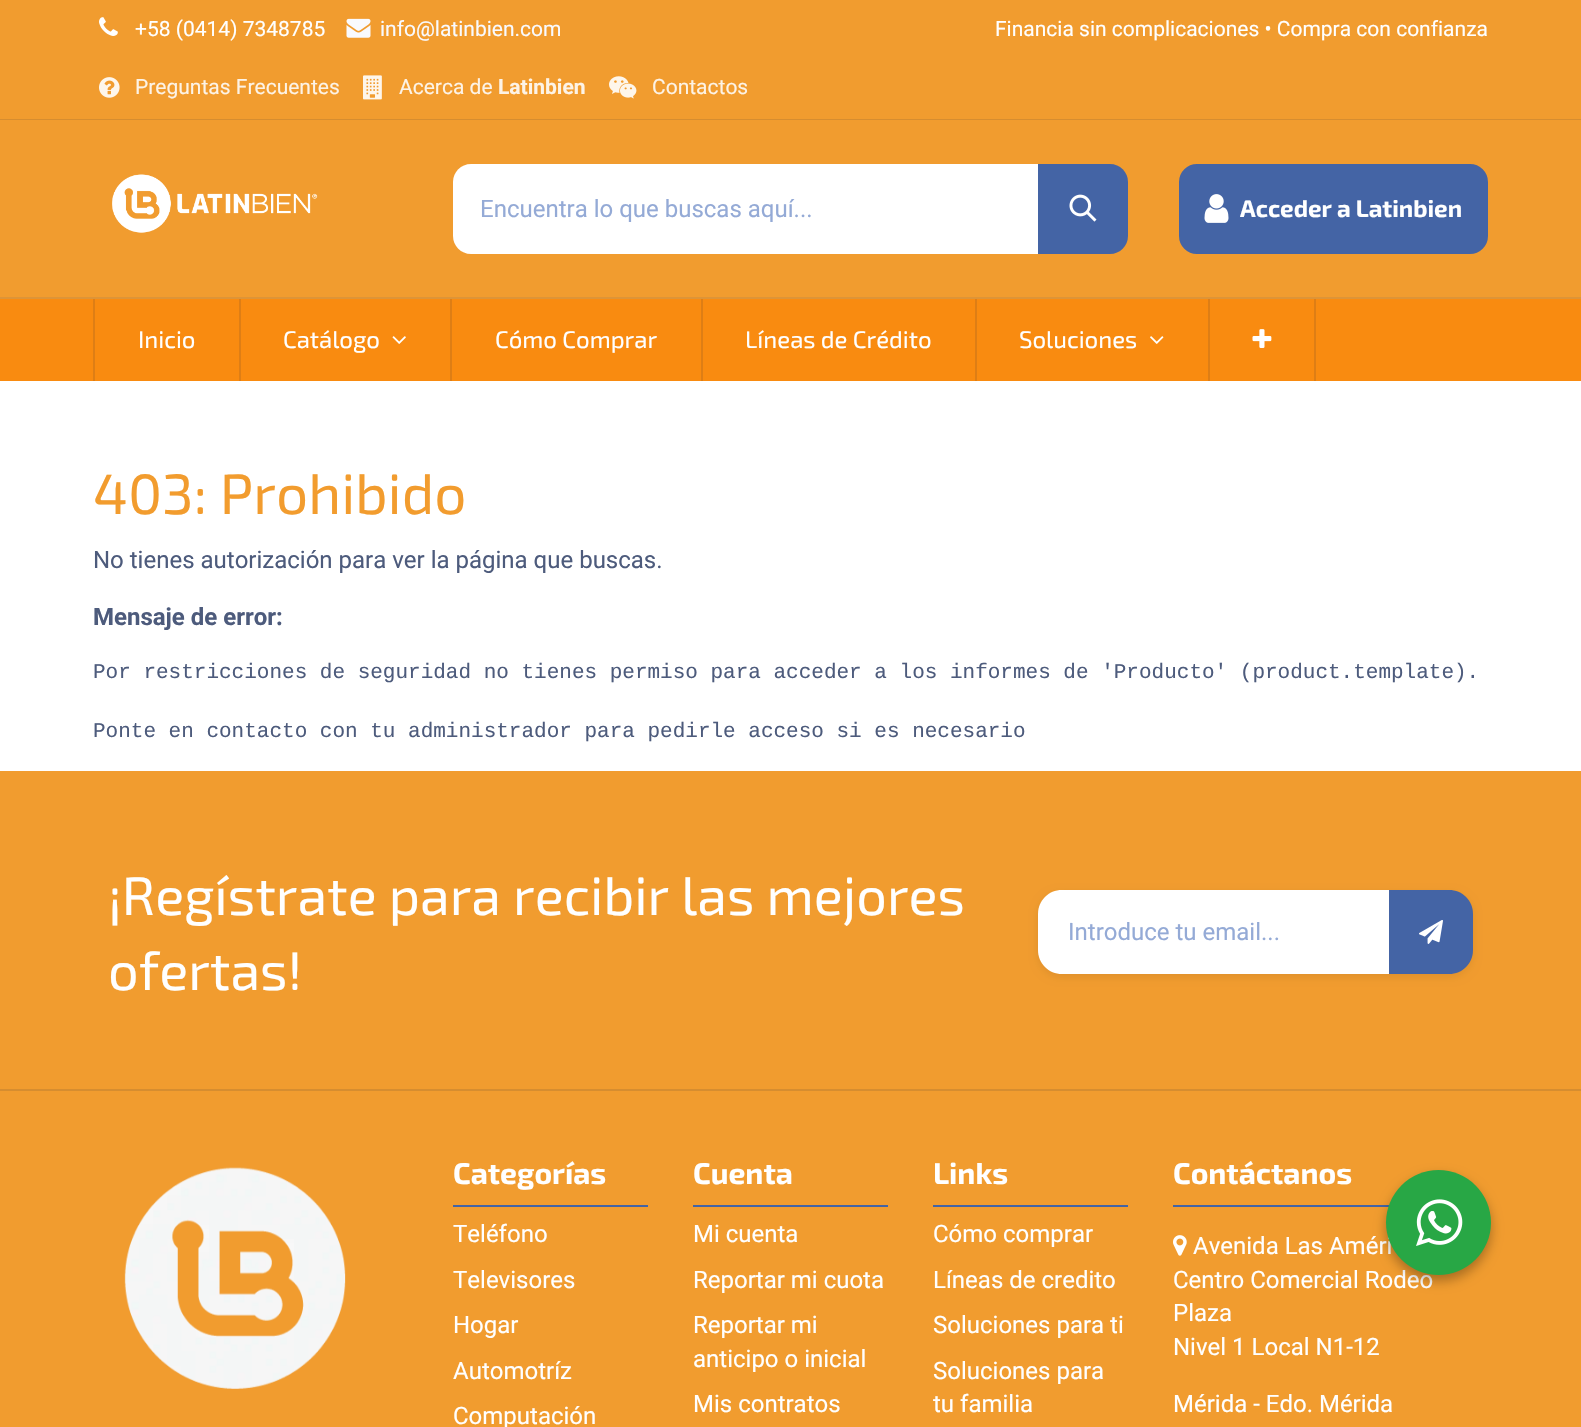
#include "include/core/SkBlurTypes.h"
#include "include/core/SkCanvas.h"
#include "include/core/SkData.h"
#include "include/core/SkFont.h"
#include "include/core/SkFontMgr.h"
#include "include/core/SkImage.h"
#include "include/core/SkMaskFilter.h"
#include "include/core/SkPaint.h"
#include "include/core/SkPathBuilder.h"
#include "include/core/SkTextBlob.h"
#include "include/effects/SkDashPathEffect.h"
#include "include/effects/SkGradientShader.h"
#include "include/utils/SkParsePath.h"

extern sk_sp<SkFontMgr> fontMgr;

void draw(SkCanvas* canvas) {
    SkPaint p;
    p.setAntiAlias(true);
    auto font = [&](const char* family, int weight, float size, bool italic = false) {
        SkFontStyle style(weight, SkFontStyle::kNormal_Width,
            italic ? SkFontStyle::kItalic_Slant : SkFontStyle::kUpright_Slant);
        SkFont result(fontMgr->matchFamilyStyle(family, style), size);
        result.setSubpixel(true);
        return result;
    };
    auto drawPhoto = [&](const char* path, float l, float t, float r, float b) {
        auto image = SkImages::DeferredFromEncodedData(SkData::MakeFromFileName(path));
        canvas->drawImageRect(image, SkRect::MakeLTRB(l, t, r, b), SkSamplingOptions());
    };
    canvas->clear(0xFFFFFFFF);
    p.setColor(0xFFF19C2F);
    canvas->drawRect(SkRect::MakeLTRB(0, 0, 1581, 119), p);
    p.setColor(0xFFD68D30);
    canvas->drawRect(SkRect::MakeLTRB(0, 119, 1581, 120), p);
    drawPhoto("media/1.png", 99, 17, 118, 36);
    auto font1 = font("Roboto", 400, 21);
    p.setColor(0xFFFFFFFF);
    canvas->drawString("+58 (0414) 7348785", 135, 36, font1, p);
    drawPhoto("media/2.png", 346, 18, 371, 38);
    p.setColor(0xFFF9FAFE);
    canvas->drawString("info@latinbien.com", 380, 36, font1, p);
    p.setColor(0xFFFFFFFF);
    canvas->drawString("Financia sin complicaciones • Compra con confianza", 995, 36, font1, p);
    drawPhoto("media/3.png", 99, 77, 120, 98);
    p.setColor(0xFFFDF3E6);
    canvas->drawString("Preguntas Frecuentes", 135, 94, font1, p);
    drawPhoto("media/4.png", 363, 75, 382, 100);
    canvas->drawString("Acerca de", 399, 94, font1, p);
    auto font2 = font("Roboto", 700, 21);
    canvas->drawString("Latinbien", 498, 94, font2, p);
    drawPhoto("media/5.png", 609, 76, 637, 99);
    canvas->drawString("Contactos", 652, 94, font1, p);
    p.setColor(0xFFF19C2F);
    canvas->drawRect(SkRect::MakeLTRB(0, 120, 1581, 297), p);
    p.setColor(0xFFDD9438);
    canvas->drawRect(SkRect::MakeLTRB(0, 297, 1581, 299), p);
    drawPhoto("media/6.png", 112, 174, 318, 233);
    p.setColor(0xFFFFFFFF);
    canvas->drawPath(SkPathBuilder().moveTo(471, 164).lineTo(1040, 164).lineTo(1040, 254).lineTo(471, 254).cubicTo(461, 254, 453, 246, 453, 236).lineTo(453, 182).cubicTo(453, 172, 461, 164, 471, 164).close().detach(), p);
    auto font3 = font("Roboto", 400, 24);
    p.setColor(0xFF94AAD6);
    canvas->drawString("Encuentra lo que buscas aquí...", 480, 217, font3, p);
    p.setColor(0xFF4464A5);
    canvas->drawPath(SkPathBuilder().moveTo(1038, 164).lineTo(1110, 164).cubicTo(1120, 164, 1128, 172, 1128, 182).lineTo(1128, 236).cubicTo(1128, 246, 1120, 254, 1110, 254).lineTo(1038, 254).close().detach(), p);
    drawPhoto("media/7.png", 1069, 194, 1097, 222);
    canvas->drawRoundRect(SkRect::MakeLTRB(1180, 165, 1487, 253), 17, 17, p);
    p.setStyle(SkPaint::kStroke_Style);
    p.setStrokeWidth(2);
    canvas->drawRoundRect(SkRect::MakeLTRB(1180, 165, 1487, 253), 17, 17, p);
    drawPhoto("media/8.png", 1204, 194, 1229, 223);
    auto font4 = font("Exo 2", 700, 24);
    p.setStyle(SkPaint::kFill_Style);
    p.setColor(0xFFFFFFFF);
    canvas->drawString("Acceder a Latinbien", 1240, 217, font4, p);
    p.setColor(0xFFF98B10);
    canvas->drawRect(SkRect::MakeLTRB(0, 299, 1581, 381), p);
    p.setColor(0xFFDE7E15);
    canvas->drawRect(SkRect::MakeLTRB(93, 299, 95, 381), p);
    auto font5 = font("Exo 2", 400, 24);
    p.setColor(0xFFFFFFFF);
    canvas->drawString("Inicio", 138, 348, font5, p);
    p.setColor(0xFFDE7E15);
    canvas->drawRect(SkRect::MakeLTRB(239, 299, 241, 381), p);
    p.setColor(0xFFFFFFFF);
    canvas->drawString("Catálogo", 283, 348, font5, p);
    drawPhoto("media/9.png", 392, 336, 406, 344);
    p.setColor(0xFFDE7E15);
    canvas->drawRect(SkRect::MakeLTRB(450, 299, 452, 381), p);
    p.setColor(0xFFFFFFFF);
    canvas->drawString("Cómo Comprar", 495, 348, font5, p);
    p.setColor(0xFFDE7E15);
    canvas->drawRect(SkRect::MakeLTRB(701, 299, 703, 381), p);
    p.setColor(0xFFFFFFFF);
    canvas->drawString("Líneas de Crédito", 745, 348, font5, p);
    p.setColor(0xFFDE7E15);
    canvas->drawRect(SkRect::MakeLTRB(975, 299, 977, 381), p);
    p.setColor(0xFFFFFFFF);
    canvas->drawString("Soluciones", 1019, 348, font5, p);
    drawPhoto("media/10.png", 1150, 336, 1164, 344);
    p.setColor(0xFFDE7E15);
    canvas->drawRect(SkRect::MakeLTRB(1314, 299, 1316, 381), p);
    canvas->drawRect(SkRect::MakeLTRB(1208, 299, 1210, 381), p);
    drawPhoto("media/11.png", 1252, 329, 1272, 348);
    auto font6 = font("Exo 2", 400, 56.75f);
    p.setColor(0xFFF29C2E);
    canvas->drawString("403: Prohibido", 93, 514, font6, p);
    p.setColor(0xFF4D5B7C);
    canvas->drawString("No tienes autorización para ver la página que buscas.", 93, 568, font3, p);
    auto font7 = font("Roboto", 700, 24);
    canvas->drawString("Mensaje de error:", 93, 625, font7, p);
    auto font8 = font("Liberation Mono", 400, 21);
    canvas->drawString("Por restricciones de seguridad no tienes permiso para acceder a los informes de 'Producto' (product.template).", 93, 678, font8, p);
    canvas->drawString("Ponte en contacto con tu administrador para pedirle acceso si es necesario", 93, 737, font8, p);
    p.setColor(0xFFF19C2F);
    canvas->drawRect(SkRect::MakeLTRB(0, 771, 1581, 1427), p);
    p.setColor(0xFFD68D30);
    canvas->drawRect(SkRect::MakeLTRB(0, 1089, 1581, 1091), p);
    auto font9 = font("Exo 2", 400, 54);
    p.setColor(0xFFFFFFFF);
    canvas->drawString("¡Regístrate para recibir las mejores", 108, 915, font9, p);
    canvas->drawString("ofertas!", 108, 990, font9, p);
    p.setColor(0x14000000);
    p.setMaskFilter(SkMaskFilter::MakeBlur(kNormal_SkBlurStyle, 4.5f));
    canvas->drawRoundRect(SkRect::MakeLTRB(1038, 893, 1473, 977), 24, 24, p);
    p.setMaskFilter(nullptr);
    p.setColor(0xFFFFFFFF);
    canvas->drawPath(SkPathBuilder().moveTo(1062, 890).lineTo(1391, 890).lineTo(1391, 974).lineTo(1062, 974).cubicTo(1048.5f, 974, 1038, 963.5f, 1038, 950).lineTo(1038, 914).cubicTo(1038, 900.5f, 1048.5f, 890, 1062, 890).close().detach(), p);
    p.setColor(0xFF94AAD6);
    canvas->drawString("Introduce tu email...", 1068, 940, font3, p);
    p.setColor(0xFF4464A5);
    canvas->drawPath(SkPathBuilder().moveTo(1389, 890).lineTo(1449, 890).cubicTo(1462.5f, 890, 1473, 900.5f, 1473, 914).lineTo(1473, 950).cubicTo(1473, 963.5f, 1462.5f, 974, 1449, 974).lineTo(1389, 974).close().detach(), p);
    drawPhoto("media/12.png", 1419, 920, 1443, 944);
    drawPhoto("media/13.png", 124, 1167, 346, 1389);
    auto font10 = font("Exo 2", 700, 30);
    p.setColor(0xFFFFFFFF);
    canvas->drawString("Categorías", 453, 1184, font10, p);
    p.setColor(0xFF4464A5);
    canvas->drawRect(SkRect::MakeLTRB(453, 1205, 648, 1207), p);
    p.setColor(0xFFFFFFFF);
    {
        const struct { const char* s; float x, y; } items[] = {
            {"Teléfono", 453, 1242},
            {"Televisores", 453, 1288},
            {"Hogar", 453, 1333},
            {"Automotríz", 453, 1379},
            {"Computación", 453, 1424},
        };
        for (auto [s, x, y] : items) {
            canvas->drawString(s, x, y, font3, p);
        }
    }
    canvas->drawString("Cuenta", 693, 1184, font10, p);
    p.setColor(0xFF4464A5);
    canvas->drawRect(SkRect::MakeLTRB(693, 1205, 888, 1207), p);
    p.setColor(0xFFFFFFFF);
    {
        const struct { const char* s; float x, y; } items[] = {
            {"Mi cuenta", 693, 1242},
            {"Reportar mi cuota", 693, 1288},
            {"Reportar mi", 693, 1333},
            {"anticipo o inicial", 693, 1367},
            {"Mis contratos", 693, 1412},
        };
        for (auto [s, x, y] : items) {
            canvas->drawString(s, x, y, font3, p);
        }
    }
    canvas->drawString("Links", 933, 1184, font10, p);
    p.setColor(0xFF4464A5);
    canvas->drawRect(SkRect::MakeLTRB(933, 1205, 1128, 1207), p);
    p.setColor(0xFFFFFFFF);
    {
        const struct { const char* s; float x, y; } items[] = {
            {"Cómo comprar", 933, 1242},
            {"Líneas de credito", 933, 1288},
            {"Soluciones para ti", 933, 1333},
            {"Soluciones para", 933, 1379},
            {"tu familia", 933, 1412},
        };
        for (auto [s, x, y] : items) {
            canvas->drawString(s, x, y, font3, p);
        }
    }
    canvas->drawString("Contáctanos", 1173, 1184, font10, p);
    p.setColor(0xFF4464A5);
    canvas->drawRect(SkRect::MakeLTRB(1173, 1205, 1389, 1207), p);
    drawPhoto("media/14.png", 1173, 1235, 1187, 1256);
    p.setColor(0xFFFFFFFF);
    {
        const struct { const char* s; float x, y; } items[] = {
            {"Avenida Las Améri", 1193, 1254},
            {"Centro Comercial Rodeo", 1173, 1288},
            {"Plaza", 1173, 1321},
            {"Nivel 1 Local N1-12", 1173, 1355},
            {"Mérida - Edo. Mérida", 1173, 1412},
        };
        for (auto [s, x, y] : items) {
            canvas->drawString(s, x, y, font3, p);
        }
    }
    p.setColor(0x4D000000);
    p.setMaskFilter(SkMaskFilter::MakeBlur(kNormal_SkBlurStyle, 6));
    canvas->drawRoundRect(SkRect::MakeLTRB(1386, 1176, 1491, 1281), 52.5f, 52.5f, p);
    p.setMaskFilter(nullptr);
    p.setColor(0xFF28A745);
    canvas->drawCircle(1438.5f, 1222.5f, 52.5f, p);
    drawPhoto("media/15.png", 1416, 1199, 1463, 1246);
}
